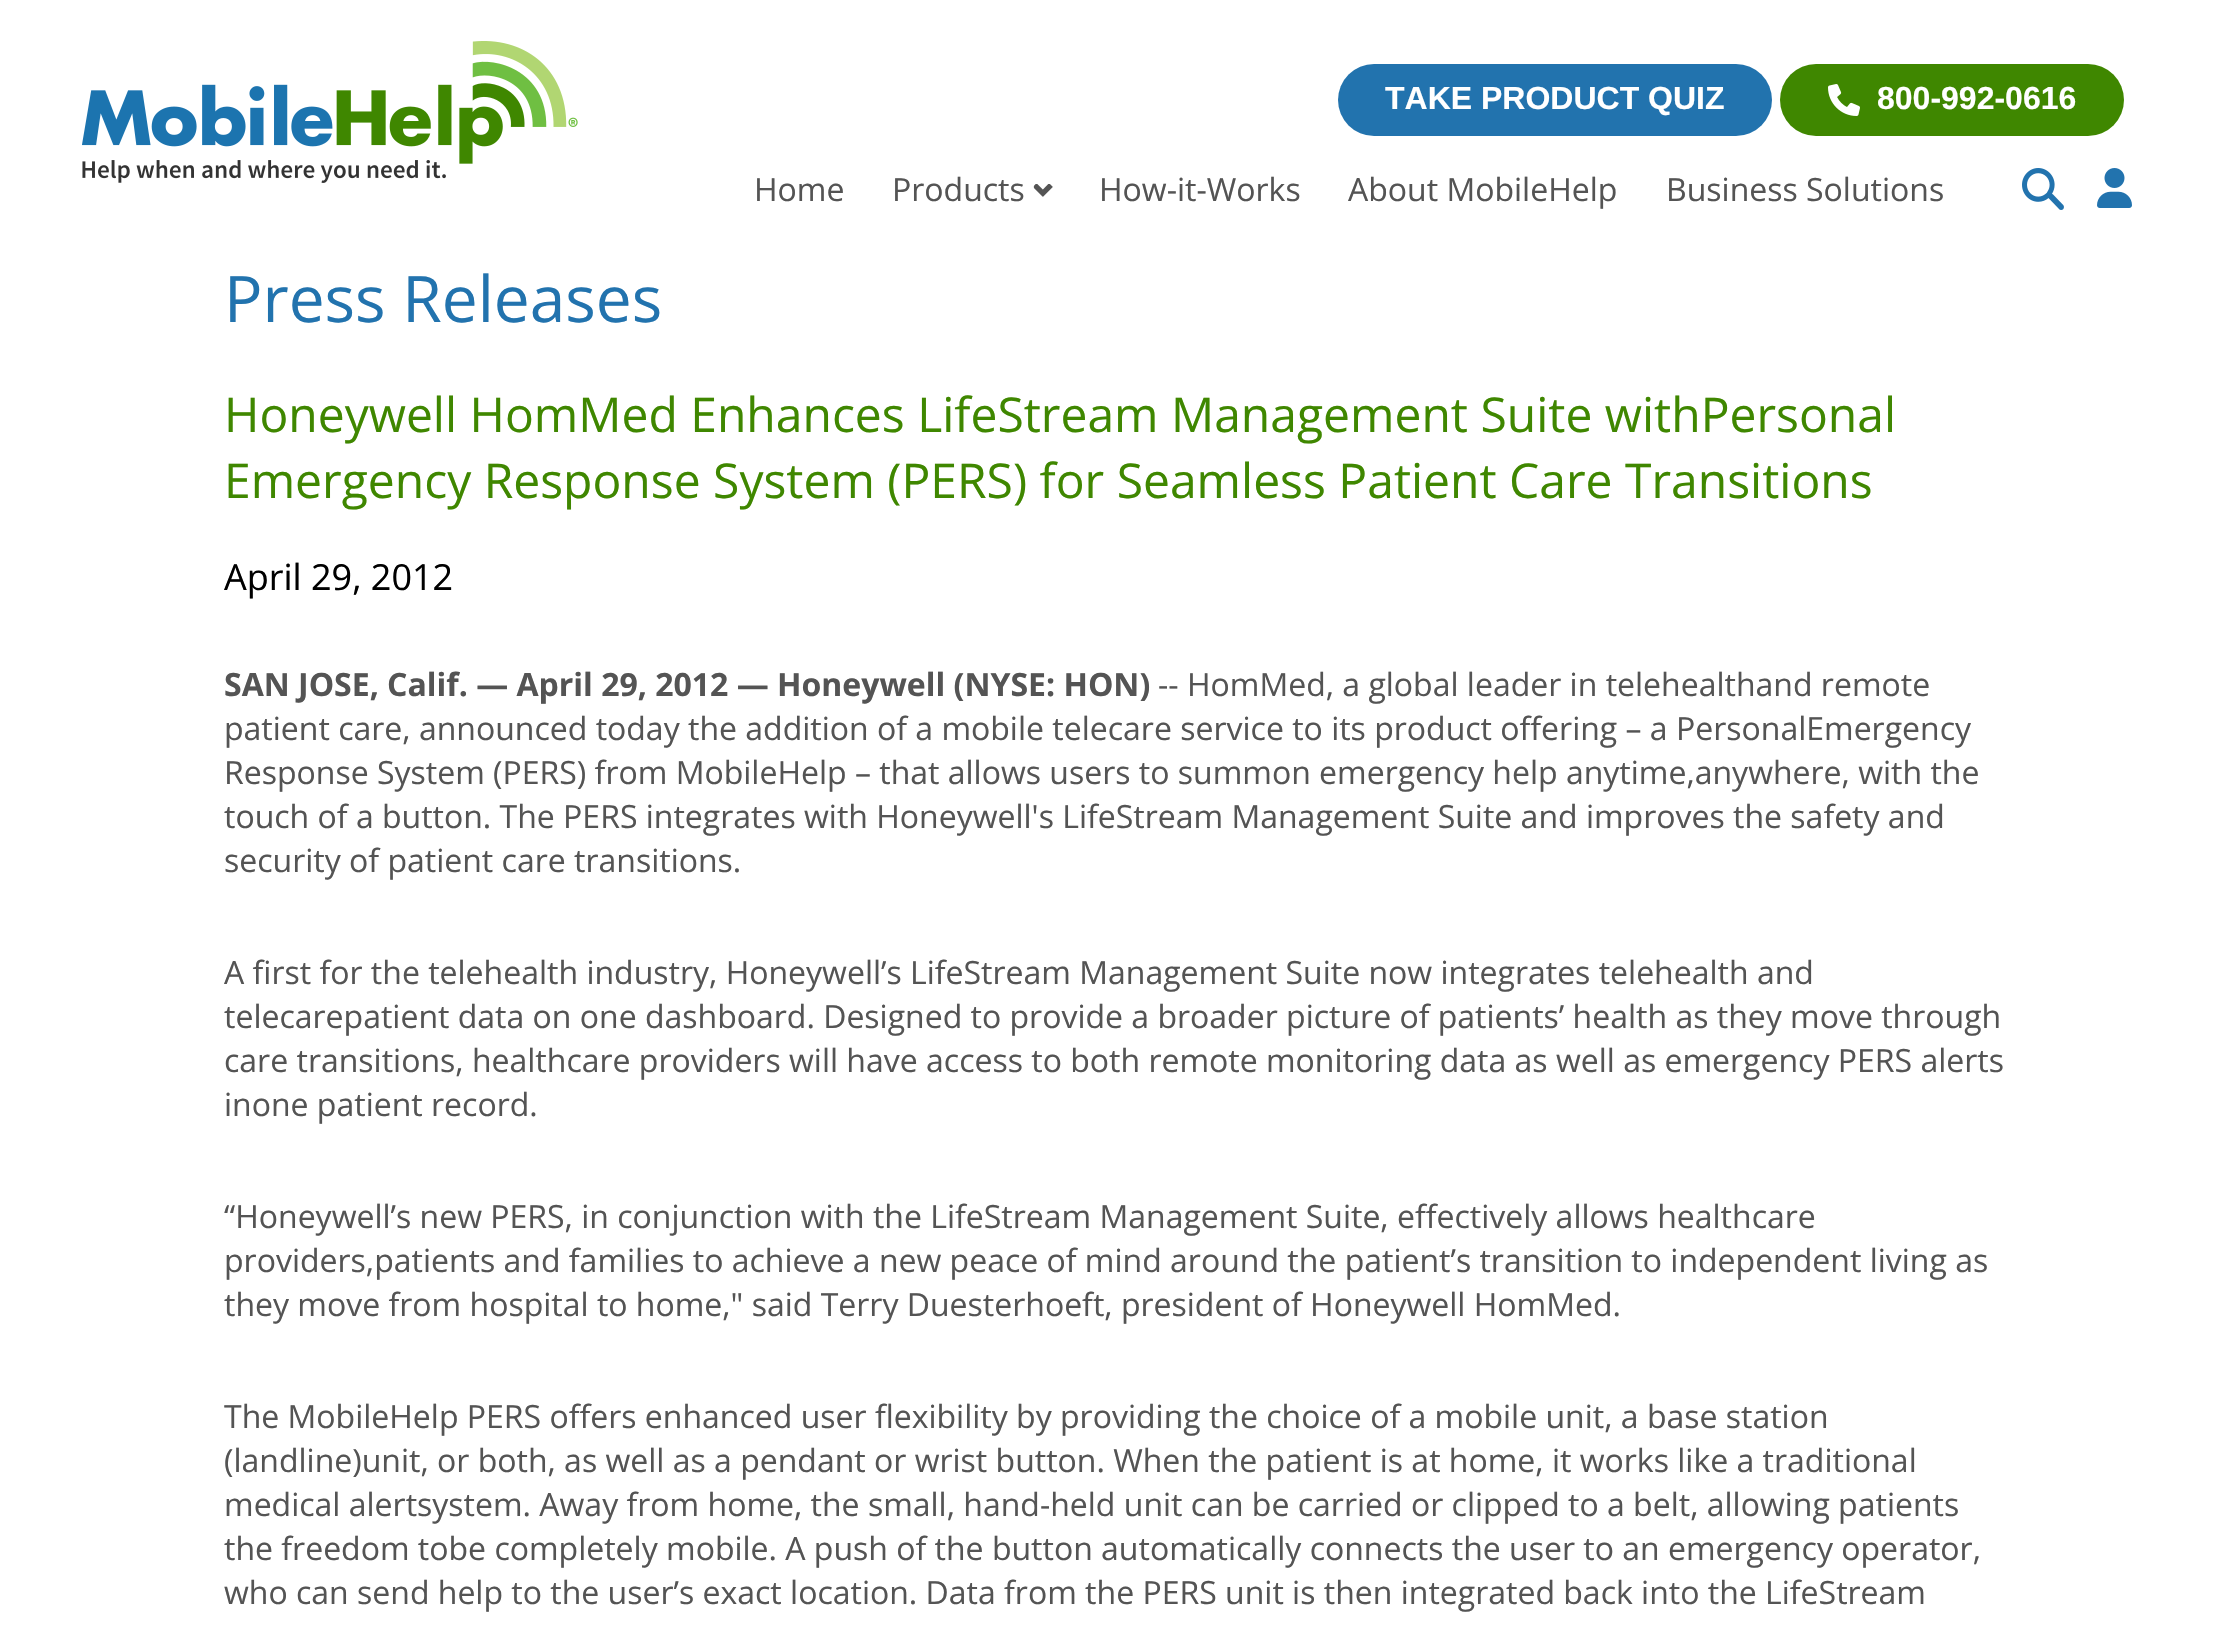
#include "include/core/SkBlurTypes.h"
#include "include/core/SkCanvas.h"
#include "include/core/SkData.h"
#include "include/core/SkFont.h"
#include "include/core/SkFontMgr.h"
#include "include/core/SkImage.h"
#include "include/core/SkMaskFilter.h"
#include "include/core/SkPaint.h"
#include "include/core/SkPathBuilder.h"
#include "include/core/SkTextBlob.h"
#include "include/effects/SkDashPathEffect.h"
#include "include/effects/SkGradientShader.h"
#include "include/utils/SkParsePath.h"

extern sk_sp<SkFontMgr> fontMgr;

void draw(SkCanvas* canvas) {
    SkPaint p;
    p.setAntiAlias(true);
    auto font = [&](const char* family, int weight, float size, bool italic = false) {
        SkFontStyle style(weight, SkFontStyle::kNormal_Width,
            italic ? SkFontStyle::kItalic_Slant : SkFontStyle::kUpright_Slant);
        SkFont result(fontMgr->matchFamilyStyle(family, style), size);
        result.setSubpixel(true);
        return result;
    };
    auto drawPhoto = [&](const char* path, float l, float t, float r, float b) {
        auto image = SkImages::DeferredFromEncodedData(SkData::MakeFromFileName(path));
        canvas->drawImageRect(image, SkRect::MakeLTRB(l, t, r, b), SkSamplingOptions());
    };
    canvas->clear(0xFFFFFFFF);
    drawPhoto("media/1.png", 82, 41, 578, 183);
    p.setColor(0xFF2273AE);
    canvas->drawRoundRect(SkRect::MakeLTRB(1338, 64, 1772, 136), 36, 36, p);
    auto font1 = font("Liberation Sans", 700, 32);
    p.setColor(0xFFFFFFFF);
    canvas->drawString("TAKE PRODUCT QUIZ", 1385, 109, font1, p);
    p.setColor(0xFF3F8700);
    canvas->drawRoundRect(SkRect::MakeLTRB(1780, 64, 2124, 136), 36, 36, p);
    drawPhoto("media/2.png", 1828, 84, 1860, 116);
    p.setColor(0xFFFFFFFF);
    canvas->drawString("800-992-0616", 1877, 109, font1, p);
    auto font2 = font("Open Sans", 400, 32);
    p.setColor(0xFF545454);
    canvas->drawString("Home", 754, 201, font2, p);
    canvas->drawString("Products", 892, 201, font2, p);
    drawPhoto("media/3.png", 1033, 184, 1053, 197);
    {
        const struct { const char* s; float x, y; } items[] = {
            {"How-it-Works", 1099, 201},
            {"About MobileHelp", 1348, 201},
            {"Business Solutions", 1666, 201},
        };
        for (auto [s, x, y] : items) {
            canvas->drawString(s, x, y, font2, p);
        }
    }
    drawPhoto("media/4.png", 2022, 168, 2064, 210);
    drawPhoto("media/5.png", 2097, 168, 2132, 208);
    auto font3 = font("Open Sans", 400, 64);
    p.setColor(0xFF2273AE);
    canvas->drawString("Press Releases", 224, 322, font3, p);
    auto font4 = font("Open Sans", 400, 48);
    p.setColor(0xFF3F8700);
    canvas->drawString("Honeywell HomMed Enhances LifeStream Management Suite withPersonal", 224, 432, font4, p);
    canvas->drawString("Emergency Response System (PERS) for Seamless Patient Care Transitions", 224, 498, font4, p);
    auto font5 = font("Open Sans", 400, 36);
    p.setColor(0xFF000000);
    canvas->drawString("April 29, 2012", 224, 590, font5, p);
    auto font6 = font("Open Sans", 700, 32);
    p.setColor(0xFF545454);
    canvas->drawString("SAN JOSE, Calif. — April 29, 2012 — Honeywell (NYSE: HON)", 224, 696, font6, p);
    {
        const struct { const char* s; float x, y; } items[] = {
            {"-- HomMed, a global leader in telehealthand remote", 1158, 696},
            {"patient care, announced today the addition of a mobile telecare service to its product offering – a PersonalEmergency", 224, 740},
            {"Response System (PERS) from MobileHelp – that allows users to summon emergency help anytime,anywhere, with the", 224, 784},
            {"touch of a button. The PERS integrates with Honeywell's LifeStream Management Suite and improves the safety and", 224, 828},
            {"security of patient care transitions.", 224, 872},
            {"A first for the telehealth industry, Honeywell’s LifeStream Management Suite now integrates telehealth and", 224, 984},
            {"telecarepatient data on one dashboard. Designed to provide a broader picture of patients’ health as they move through", 224, 1028},
            {"care transitions, healthcare providers will have access to both remote monitoring data as well as emergency PERS alerts", 224, 1072},
            {"inone patient record.", 224, 1116},
            {"“Honeywell’s new PERS, in conjunction with the LifeStream Management Suite, effectively allows healthcare", 224, 1228},
            {"providers,patients and families to achieve a new peace of mind around the patient’s transition to independent living as", 224, 1272},
            {"they move from hospital to home,\" said Terry Duesterhoeft, president of Honeywell HomMed.", 224, 1316},
            {"The MobileHelp PERS offers enhanced user flexibility by providing the choice of a mobile unit, a base station", 224, 1428},
            {"(landline)unit, or both, as well as a pendant or wrist button. When the patient is at home, it works like a traditional", 224, 1472},
            {"medical alertsystem. Away from home, the small, hand-held unit can be carried or clipped to a belt, allowing patients", 224, 1516},
            {"the freedom tobe completely mobile. A push of the button automatically connects the user to an emergency operator,", 224, 1560},
            {"who can send help to the user’s exact location. Data from the PERS unit is then integrated back into the LifeStream", 224, 1604},
        };
        for (auto [s, x, y] : items) {
            canvas->drawString(s, x, y, font2, p);
        }
    }
}
